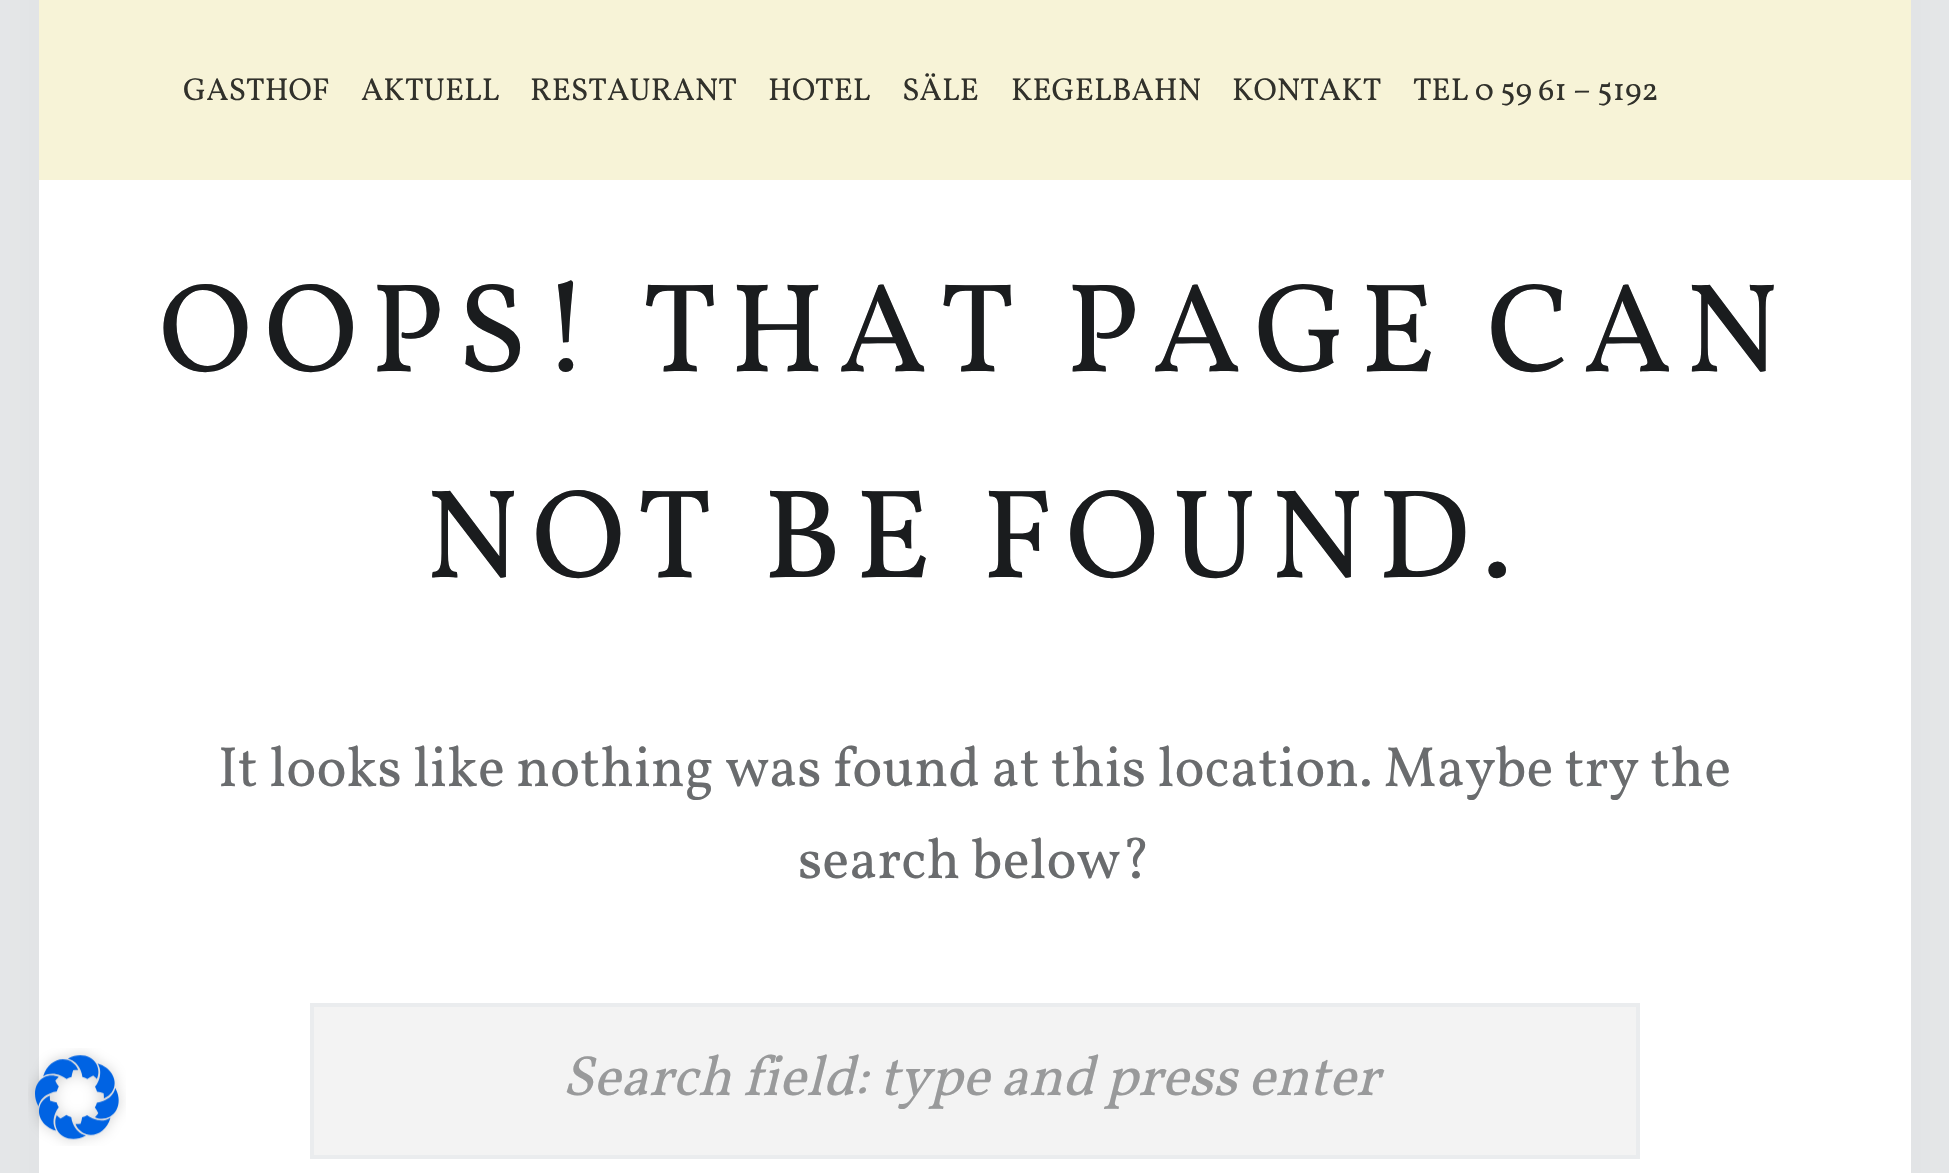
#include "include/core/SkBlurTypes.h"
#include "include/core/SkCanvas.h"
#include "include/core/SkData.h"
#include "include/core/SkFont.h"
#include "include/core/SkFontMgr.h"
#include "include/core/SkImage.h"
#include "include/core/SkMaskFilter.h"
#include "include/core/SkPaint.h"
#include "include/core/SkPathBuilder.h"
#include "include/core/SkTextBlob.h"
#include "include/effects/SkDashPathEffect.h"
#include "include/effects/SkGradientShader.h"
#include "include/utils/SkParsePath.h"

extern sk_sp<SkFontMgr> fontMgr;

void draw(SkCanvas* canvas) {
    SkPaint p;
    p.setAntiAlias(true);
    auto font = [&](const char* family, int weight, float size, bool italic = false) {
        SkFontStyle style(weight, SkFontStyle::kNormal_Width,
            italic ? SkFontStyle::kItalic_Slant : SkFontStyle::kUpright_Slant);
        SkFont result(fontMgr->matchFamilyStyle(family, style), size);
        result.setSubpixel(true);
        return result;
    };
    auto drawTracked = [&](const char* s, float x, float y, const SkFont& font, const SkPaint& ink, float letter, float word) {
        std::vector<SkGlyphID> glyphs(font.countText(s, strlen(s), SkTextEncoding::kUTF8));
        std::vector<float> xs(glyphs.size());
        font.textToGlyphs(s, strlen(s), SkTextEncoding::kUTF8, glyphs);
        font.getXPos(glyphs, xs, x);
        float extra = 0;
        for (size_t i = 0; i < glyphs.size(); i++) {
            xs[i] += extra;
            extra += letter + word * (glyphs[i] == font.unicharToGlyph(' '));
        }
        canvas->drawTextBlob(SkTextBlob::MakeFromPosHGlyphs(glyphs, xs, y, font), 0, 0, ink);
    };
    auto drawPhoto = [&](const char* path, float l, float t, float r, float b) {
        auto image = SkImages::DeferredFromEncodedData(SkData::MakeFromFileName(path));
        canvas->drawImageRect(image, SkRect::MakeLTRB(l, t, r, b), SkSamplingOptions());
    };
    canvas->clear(0xFFEAECEE);
    p.setColor(0x12000000);
    p.setMaskFilter(SkMaskFilter::MakeBlur(kNormal_SkBlurStyle, 63.5f));
    canvas->drawRect(SkRect::MakeLTRB(39, -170, 1911, 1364), p);
    p.setMaskFilter(nullptr);
    p.setColor(0xFFFFFFFF);
    canvas->drawRect(SkRect::MakeLTRB(39, 180, 1911, 1173), p);
    drawPhoto("media/1.png", 28, 1048, 126, 1146);
    p.setColor(0xFFF7F3D7);
    canvas->drawRect(SkRect::MakeLTRB(39, 0, 1911, 180), p);
    auto font1 = font("Vollkorn", 400, 31.75f);
    p.setColor(0xFF31312B);
    {
        const struct { const char* s; float x, y; } items[] = {
            {"GASTHOF", 183, 100},
            {"AKTUELL", 361, 100},
            {"RESTAURANT", 530, 100},
            {"HOTEL", 768, 100},
            {"SÄLE", 902, 100},
            {"KEGELBAHN", 1011, 100},
            {"KONTAKT", 1232, 100},
            {"TEL 0 59 61 – 5192", 1413, 100},
        };
        for (auto [s, x, y] : items) {
            canvas->drawString(s, x, y, font1, p);
        }
    }
    auto font2 = font("Vollkorn", 400, 127);
    p.setColor(0xFF1A1C1E);
    drawTracked("OOPS! THAT PAGE CAN", 159, 371, font2, p, 12.75f, 0);
    drawTracked("NOT BE FOUND.", 425, 577, font2, p, 12.75f, 0);
    auto font3 = font("Vollkorn", 400, 56.7f);
    p.setColor(0xFF6A6C6E);
    canvas->drawString("It looks like nothing was found at this location. Maybe try the", 218, 786, font3, p);
    canvas->drawString("search below?", 798, 878, font3, p);
    p.setColor(0xFFF3F3F3);
    canvas->drawRect(SkRect::MakeLTRB(312, 1005, 1638, 1157), p);
    p.setStyle(SkPaint::kStroke_Style);
    p.setStrokeWidth(4);
    p.setColor(0xFFEAECEE);
    canvas->drawRect(SkRect::MakeLTRB(312, 1005, 1638, 1157), p);
    auto font4 = font("Vollkorn", 400, 56.7f, true);
    p.setStyle(SkPaint::kFill_Style);
    p.setColor(0xFF999A9B);
    drawTracked("Search field: type and press enter", 562, 1095, font4, p, 0, -0.25f);
}
